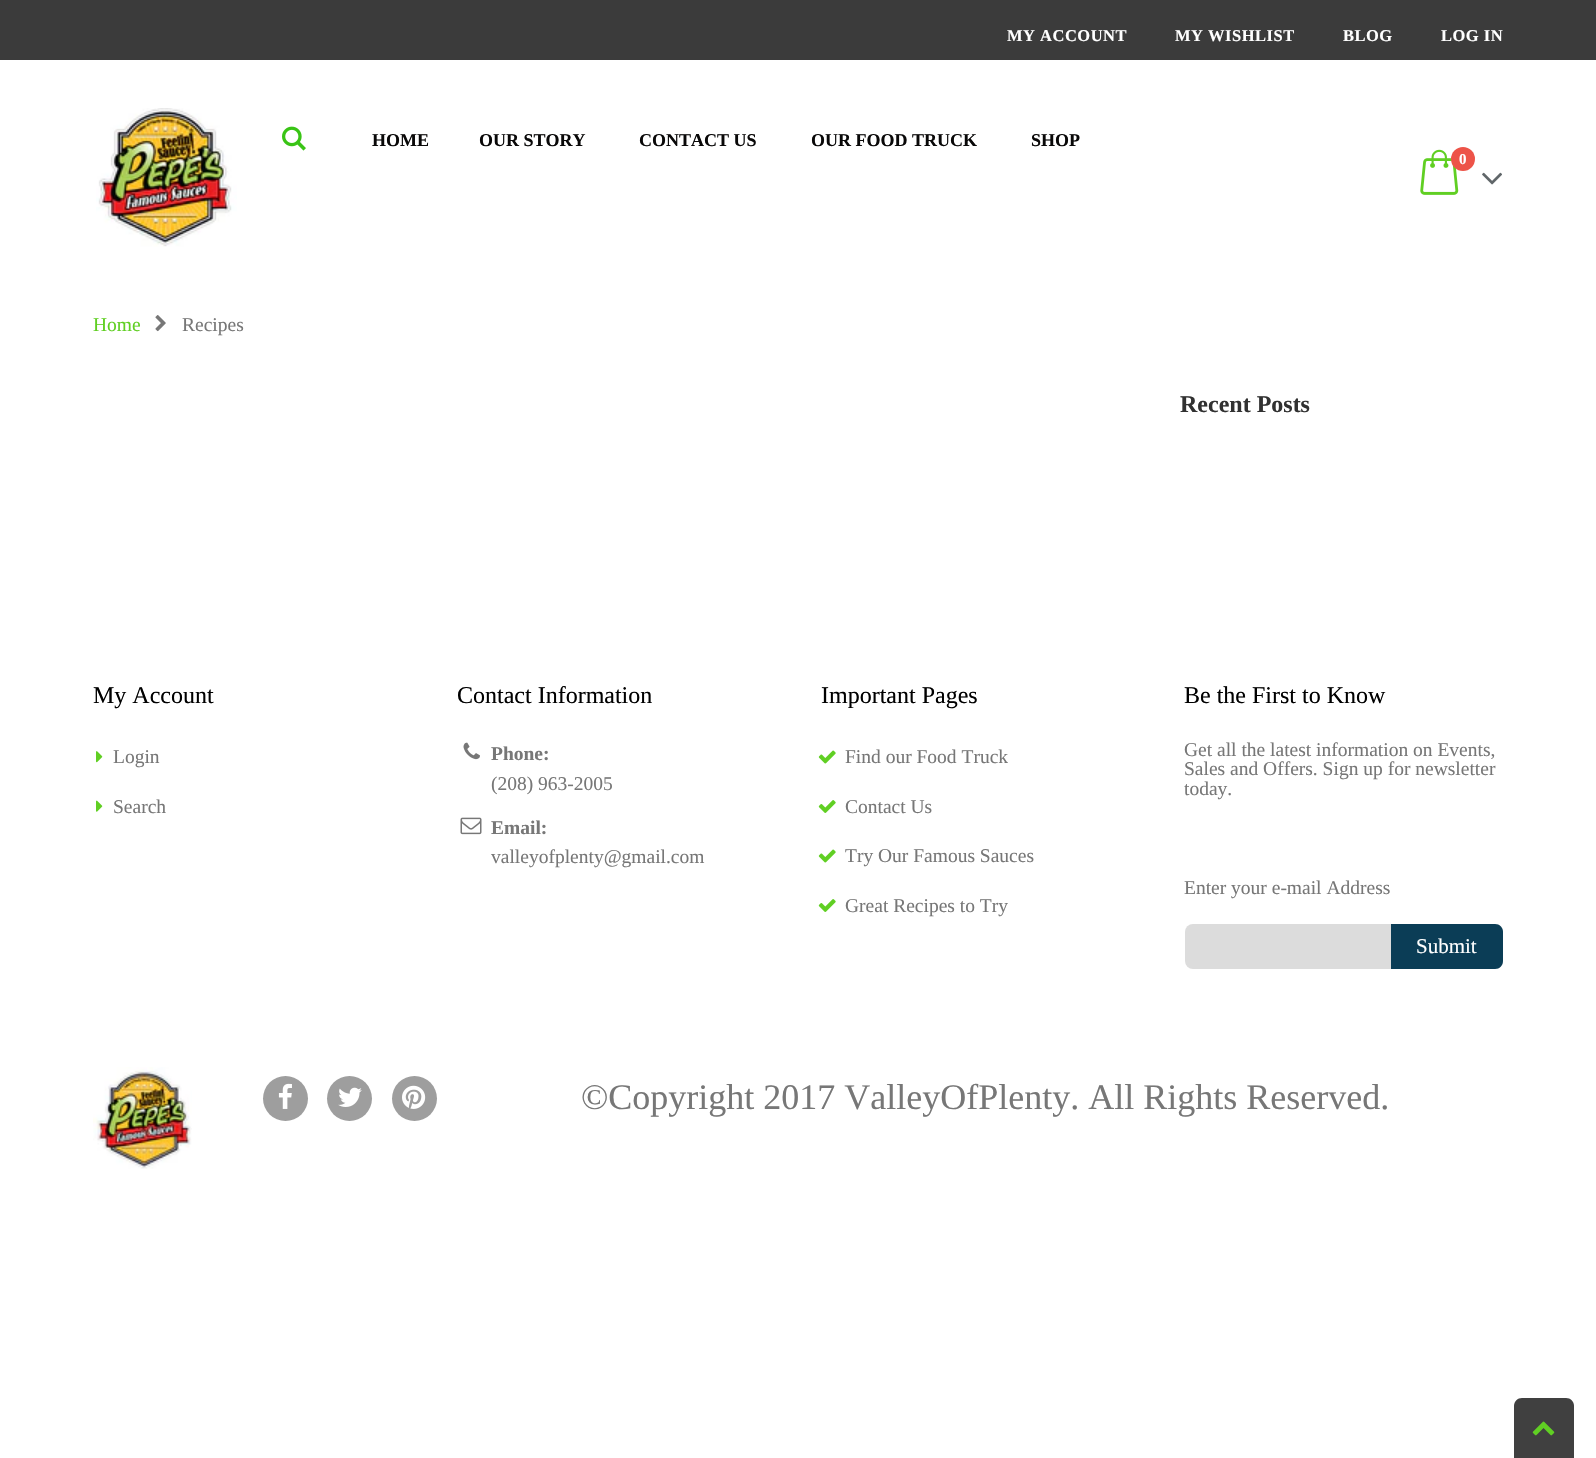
#include "include/core/SkBlurTypes.h"
#include "include/core/SkCanvas.h"
#include "include/core/SkData.h"
#include "include/core/SkFont.h"
#include "include/core/SkFontMgr.h"
#include "include/core/SkImage.h"
#include "include/core/SkMaskFilter.h"
#include "include/core/SkPaint.h"
#include "include/core/SkPathBuilder.h"
#include "include/core/SkTextBlob.h"
#include "include/effects/SkDashPathEffect.h"
#include "include/effects/SkGradientShader.h"
#include "include/utils/SkParsePath.h"

extern sk_sp<SkFontMgr> fontMgr;

void draw(SkCanvas* canvas) {
    SkPaint p;
    p.setAntiAlias(true);
    auto font = [&](const char* family, int weight, float size, bool italic = false) {
        SkFontStyle style(weight, SkFontStyle::kNormal_Width,
            italic ? SkFontStyle::kItalic_Slant : SkFontStyle::kUpright_Slant);
        SkFont result(fontMgr->matchFamilyStyle(family, style), size);
        result.setSubpixel(true);
        return result;
    };
    auto drawTracked = [&](const char* s, float x, float y, const SkFont& font, const SkPaint& ink, float letter, float word) {
        std::vector<SkGlyphID> glyphs(font.countText(s, strlen(s), SkTextEncoding::kUTF8));
        std::vector<float> xs(glyphs.size());
        font.textToGlyphs(s, strlen(s), SkTextEncoding::kUTF8, glyphs);
        font.getXPos(glyphs, xs, x);
        float extra = 0;
        for (size_t i = 0; i < glyphs.size(); i++) {
            xs[i] += extra;
            extra += letter + word * (glyphs[i] == font.unicharToGlyph(' '));
        }
        canvas->drawTextBlob(SkTextBlob::MakeFromPosHGlyphs(glyphs, xs, y, font), 0, 0, ink);
    };
    auto drawPhoto = [&](const char* path, float l, float t, float r, float b) {
        auto image = SkImages::DeferredFromEncodedData(SkData::MakeFromFileName(path));
        canvas->drawImageRect(image, SkRect::MakeLTRB(l, t, r, b), SkSamplingOptions());
    };
    canvas->clear(0xFFFFFFFF);
    p.setColor(0xFF3B3B3B);
    canvas->drawRect(SkRect::MakeLTRB(0, 0, 1596, 60), p);
    auto font1 = font("Liberation Serif", 700, 16.5f);
    p.setColor(0xFFFFFFFF);
    {
        const struct { const char* s; float x, y; } items[] = {
            {"MY ACCOUNT", 1007, 41},
            {"MY WISHLIST", 1175, 41},
            {"BLOG", 1343, 41},
            {"LOG IN", 1441, 41},
        };
        for (auto [s, x, y] : items) {
            drawTracked(s, x, y, font1, p, 0.5f, 0);
        }
    }
    drawPhoto("media/1.png", 96, 108, 237, 247);
    drawPhoto("media/2.png", 282, 126, 306, 151);
    auto font2 = font("Liberation Serif", 700, 18);
    p.setColor(0xFF090808);
    {
        const struct { const char* s; float x, y; } items[] = {
            {"HOME", 372, 146},
            {"OUR STORY", 479, 146},
            {"CONTACT US", 639, 146},
            {"OUR FOOD TRUCK", 811, 146},
            {"SHOP", 1031, 146},
        };
        for (auto [s, x, y] : items) {
            canvas->drawString(s, x, y, font2, p);
        }
    }
    drawPhoto("media/3.png", 1420, 149, 1459, 195);
    p.setColor(0xFFED5348);
    canvas->drawCircle(1463, 159, 12, p);
    auto font3 = font("Liberation Serif", 700, 15);
    p.setColor(0xFFFFFFFF);
    canvas->drawString("0", 1459, 164, font3, p);
    drawPhoto("media/4.png", 1482, 172, 1502, 185);
    auto font4 = font("Liberation Serif", 400, 19.5f);
    p.setColor(0xFF60CF23);
    canvas->drawString("Home", 93, 331, font4, p);
    drawPhoto("media/5.png", 155, 315, 166, 332);
    p.setColor(0xFF777777);
    canvas->drawString("Recipes", 182, 331, font4, p);
    auto font5 = font("Liberation Serif", 700, 24);
    p.setColor(0xFF313131);
    canvas->drawString("Recent Posts", 1180, 412, font5, p);
    auto font6 = font("Liberation Serif", 400, 24);
    p.setColor(0xFF000000);
    canvas->drawString("My Account", 93, 703, font6, p);
    drawPhoto("media/6.png", 96, 751, 103, 763);
    p.setColor(0xFF777777);
    canvas->drawString("Login", 113, 763, font4, p);
    drawPhoto("media/7.png", 96, 800, 103, 812);
    canvas->drawString("Search", 113, 813, font4, p);
    p.setColor(0xFF000000);
    canvas->drawString("Contact Information", 457, 703, font6, p);
    drawPhoto("media/8.png", 463, 742, 480, 760);
    auto font7 = font("Liberation Serif", 700, 19.5f);
    p.setColor(0xFF777777);
    canvas->drawString("Phone:", 491, 760, font7, p);
    canvas->drawString("(208) 963-2005", 491, 790, font4, p);
    drawPhoto("media/9.png", 460, 817, 482, 835);
    canvas->drawString("Email:", 491, 834, font7, p);
    canvas->drawString("valleyofplenty@gmail.com", 491, 863, font4, p);
    p.setColor(0xFF000000);
    canvas->drawString("Important Pages", 821, 703, font6, p);
    drawPhoto("media/10.png", 818, 750, 836, 764);
    p.setColor(0xFF777777);
    canvas->drawString("Find our Food Truck", 845, 763, font4, p);
    drawPhoto("media/11.png", 818, 800, 836, 813);
    canvas->drawString("Contact Us", 845, 813, font4, p);
    drawPhoto("media/10.png", 818, 849, 836, 863);
    canvas->drawString("Try Our Famous Sauces", 845, 862, font4, p);
    drawPhoto("media/11.png", 818, 899, 836, 912);
    canvas->drawString("Great Recipes to Try", 845, 912, font4, p);
    p.setColor(0xFF000000);
    canvas->drawString("Be the First to Know", 1184, 703, font6, p);
    p.setColor(0xFF777777);
    {
        const struct { const char* s; float x, y; } items[] = {
            {"Get all the latest information on Events,", 1184, 756},
            {"Sales and Offers. Sign up for newsletter", 1184, 775},
            {"today.", 1184, 795},
            {"Enter your e-mail Address", 1184, 894},
        };
        for (auto [s, x, y] : items) {
            canvas->drawString(s, x, y, font4, p);
        }
    }
    p.setColor(0xFFDCDCDC);
    canvas->drawRoundRect(SkRect::MakeLTRB(1185, 924, 1503, 969), 8, 8, p);
    p.setColor(0xFF0B3D56);
    canvas->drawPath(SkPathBuilder().moveTo(1391, 924).lineTo(1495, 924).cubicTo(1499.5f, 924, 1503, 927.5f, 1503, 932).lineTo(1503, 961).cubicTo(1503, 965.5f, 1499.5f, 969, 1495, 969).lineTo(1391, 969).close().detach(), p);
    auto font8 = font("Liberation Serif", 400, 21);
    p.setColor(0xFFFFFFFF);
    canvas->drawString("Submit", 1416, 953, font8, p);
    drawPhoto("media/12.png", 93, 1067, 192, 1169);
    p.setColor(0xFF9E9E9E);
    canvas->drawCircle(285.5f, 1098.5f, 22.5f, p);
    drawPhoto("media/13.png", 278, 1083, 292, 1109);
    canvas->drawCircle(349.5f, 1098.5f, 22.5f, p);
    drawPhoto("media/14.png", 338, 1087, 362, 1107);
    canvas->drawCircle(414.5f, 1098.5f, 22.5f, p);
    drawPhoto("media/15.png", 402, 1085, 426, 1109);
    auto font9 = font("Liberation Serif", 400, 36);
    p.setColor(0xFF777777);
    canvas->drawString("©Copyright 2017 ValleyOfPlenty. All Rights Reserved.", 581, 1109, font9, p);
    p.setColor(0xFF404040);
    canvas->drawPath(SkPathBuilder().moveTo(1522, 1398).lineTo(1566, 1398).cubicTo(1570.5f, 1398, 1574, 1401.5f, 1574, 1406).lineTo(1574, 1458).lineTo(1514, 1458).lineTo(1514, 1406).cubicTo(1514, 1401.5f, 1517.5f, 1398, 1522, 1398).close().detach(), p);
    drawPhoto("media/16.png", 1532, 1421, 1555, 1436);
}
